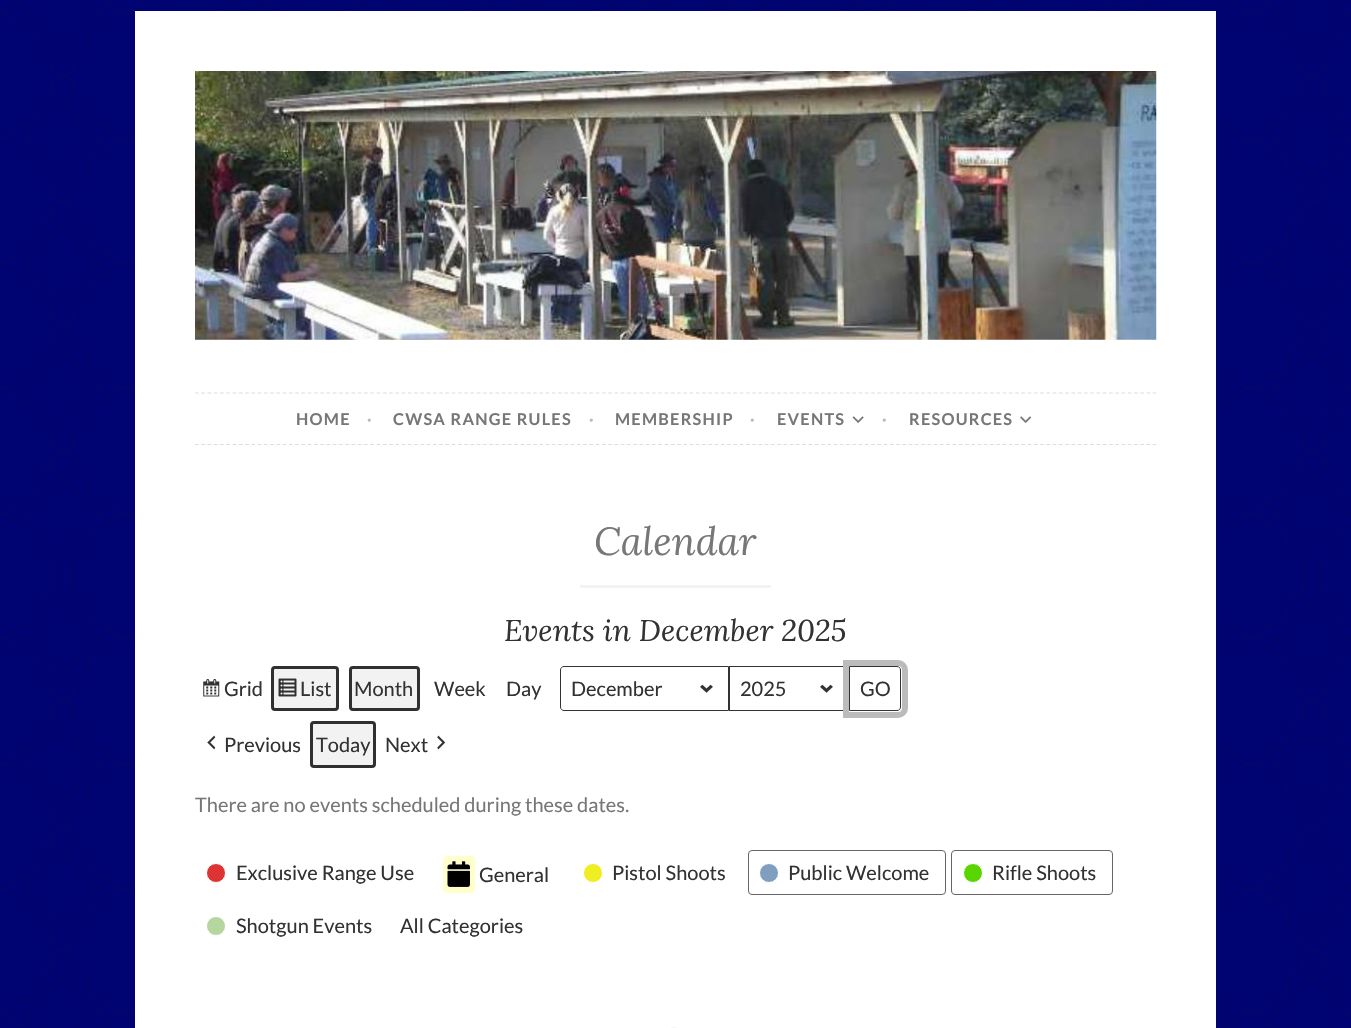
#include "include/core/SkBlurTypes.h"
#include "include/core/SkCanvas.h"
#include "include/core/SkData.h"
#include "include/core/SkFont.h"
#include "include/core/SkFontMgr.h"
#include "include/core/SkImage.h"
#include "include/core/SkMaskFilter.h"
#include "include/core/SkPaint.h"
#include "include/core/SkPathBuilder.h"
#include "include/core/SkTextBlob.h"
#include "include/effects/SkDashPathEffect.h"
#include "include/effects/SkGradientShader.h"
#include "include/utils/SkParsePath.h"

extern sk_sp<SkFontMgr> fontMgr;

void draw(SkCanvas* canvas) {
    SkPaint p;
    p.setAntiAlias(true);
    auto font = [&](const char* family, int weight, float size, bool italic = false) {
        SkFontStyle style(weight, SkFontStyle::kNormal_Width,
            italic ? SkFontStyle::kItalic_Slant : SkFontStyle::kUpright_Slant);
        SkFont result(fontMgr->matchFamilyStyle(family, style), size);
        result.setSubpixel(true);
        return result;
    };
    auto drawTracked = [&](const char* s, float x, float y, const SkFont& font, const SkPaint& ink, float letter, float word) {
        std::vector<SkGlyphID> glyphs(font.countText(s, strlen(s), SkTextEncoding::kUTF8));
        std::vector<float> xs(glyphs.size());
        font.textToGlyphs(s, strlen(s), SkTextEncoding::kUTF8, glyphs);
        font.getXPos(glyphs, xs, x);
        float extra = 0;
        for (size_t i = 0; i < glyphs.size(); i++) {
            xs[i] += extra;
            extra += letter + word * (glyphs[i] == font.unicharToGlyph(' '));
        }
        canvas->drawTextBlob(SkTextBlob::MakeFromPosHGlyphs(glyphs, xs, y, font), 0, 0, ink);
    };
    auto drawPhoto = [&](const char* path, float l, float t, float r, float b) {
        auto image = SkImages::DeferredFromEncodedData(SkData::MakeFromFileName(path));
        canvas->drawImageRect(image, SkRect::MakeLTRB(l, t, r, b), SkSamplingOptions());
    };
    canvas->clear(0xFF000372);
    drawPhoto("media/1.png", 0, 0, 1351, 1028);
    p.setColor(0xFFFFFFFF);
    canvas->drawRect(SkRect::MakeLTRB(135, 11, 1216, 1028), p);
    drawPhoto("media/2.png", 195, 71, 1157, 340);
    p.setStyle(SkPaint::kStroke_Style);
    p.setStrokeWidth(1.2f);
    p.setColor(0xFFDDDDDD);
    p.setPathEffect(SkDashPathEffect::Make({{3.75f, 2.51f}}, 0));
    canvas->drawPath(SkPathBuilder().moveTo(195, 393).lineTo(1156, 393).detach(), p);
    p.setPathEffect(nullptr);
    p.setPathEffect(SkDashPathEffect::Make({{3.75f, 2.51f}}, 0));
    canvas->drawPath(SkPathBuilder().moveTo(195, 444.5f).lineTo(1156, 444.5f).detach(), p);
    p.setPathEffect(nullptr);
    auto font1 = font("Lato", 700, 16.25f);
    p.setStyle(SkPaint::kFill_Style);
    p.setColor(0xFF777777);
    drawTracked("HOME", 296, 425, font1, p, 1.25f, 0);
    p.setColor(0xFFBBBBBB);
    drawTracked("·", 367, 425, font1, p, 1.25f, 0);
    p.setColor(0xFF777777);
    drawTracked("CWSA RANGE RULES", 393, 425, font1, p, 1.25f, 0);
    p.setColor(0xFFBBBBBB);
    drawTracked("·", 589, 425, font1, p, 1.25f, 0);
    p.setColor(0xFF777777);
    drawTracked("MEMBERSHIP", 615, 425, font1, p, 1.25f, 0);
    p.setColor(0xFFBBBBBB);
    drawTracked("·", 750, 425, font1, p, 1.25f, 0);
    p.setColor(0xFF777777);
    drawTracked("EVENTS", 777, 425, font1, p, 1.25f, 0);
    drawPhoto("media/3.png", 852, 416, 864, 423);
    p.setColor(0xFFBBBBBB);
    drawTracked("·", 882, 425, font1, p, 1.25f, 0);
    p.setColor(0xFF777777);
    drawTracked("RESOURCES", 909, 425, font1, p, 1.25f, 0);
    drawPhoto("media/4.png", 1020, 416, 1032, 423);
    auto font2 = font("Lora", 400, 39, true);
    canvas->drawString("Calendar", 594, 555, font2, p);
    p.setColor(0xFFF3F3F3);
    canvas->drawRect(SkRect::MakeLTRB(580, 585, 771, 588), p);
    auto font3 = font("Lora", 400, 30, true);
    p.setColor(0xFF313233);
    canvas->drawString("Events in December 2025", 504, 641, font3, p);
    drawPhoto("media/5.png", 203, 679, 220, 697);
    auto font4 = font("Lato", 400, 20);
    canvas->drawString("Grid", 224, 696, font4, p);
    p.setColor(0xFFF2F2F2);
    canvas->drawRoundRect(SkRect::MakeLTRB(271, 666, 339, 711), 4, 4, p);
    drawPhoto("media/6.png", 278, 678, 297, 697);
    p.setStyle(SkPaint::kStroke_Style);
    p.setStrokeWidth(3);
    p.setColor(0xFF2F3030);
    canvas->drawRoundRect(SkRect::MakeLTRB(272.5f, 667.5f, 337.5f, 709.5f), 2.5f, 2.5f, p);
    p.setStyle(SkPaint::kFill_Style);
    p.setColor(0xFF313233);
    canvas->drawString("List", 300, 696, font4, p);
    p.setColor(0xFFF2F2F2);
    canvas->drawRoundRect(SkRect::MakeLTRB(349, 666, 420, 711), 4, 4, p);
    p.setStyle(SkPaint::kStroke_Style);
    p.setColor(0xFF2F3030);
    canvas->drawRoundRect(SkRect::MakeLTRB(350.5f, 667.5f, 418.5f, 709.5f), 2.5f, 2.5f, p);
    p.setStyle(SkPaint::kFill_Style);
    p.setColor(0xFF313233);
    {
        const struct { const char* s; float x, y; } items[] = {
            {"Month", 354, 696},
            {"Week", 434, 696},
            {"Day", 506, 696},
        };
        for (auto [s, x, y] : items) {
            canvas->drawString(s, x, y, font4, p);
        }
    }
    drawPhoto("media/7.png", 700, 684, 713, 693);
    p.setStyle(SkPaint::kStroke_Style);
    p.setStrokeWidth(1);
    canvas->drawPath(SkPathBuilder().moveTo(564, 666.5f).lineTo(728.5f, 666.5f).lineTo(728.5f, 710.5f).lineTo(564, 710.5f).cubicTo(562, 710.5f, 560.5f, 709, 560.5f, 707).lineTo(560.5f, 670).cubicTo(560.5f, 668, 562, 666.5f, 564, 666.5f).close().detach(), p);
    p.setStyle(SkPaint::kFill_Style);
    canvas->drawString("December", 571, 696, font4, p);
    drawPhoto("media/7.png", 820, 684, 833, 693);
    p.setStyle(SkPaint::kStroke_Style);
    canvas->drawRect(SkRect::MakeLTRB(729.5f, 666.5f, 848.5f, 710.5f), p);
    p.setStyle(SkPaint::kFill_Style);
    canvas->drawString("2025", 740, 696, font4, p);
    p.setStyle(SkPaint::kStroke_Style);
    canvas->drawPath(SkPathBuilder().moveTo(849.5f, 666.5f).lineTo(897, 666.5f).cubicTo(899, 666.5f, 900.5f, 668, 900.5f, 670).lineTo(900.5f, 707).cubicTo(900.5f, 709, 899, 710.5f, 897, 710.5f).lineTo(849.5f, 710.5f).close().detach(), p);
    p.setStrokeWidth(6);
    p.setColor(0xFFBBBBBB);
    canvas->drawPath(SkPathBuilder().moveTo(846, 663).lineTo(898, 663).cubicTo(902, 663, 905, 666, 905, 670).lineTo(905, 708).cubicTo(905, 712, 902, 715, 898, 715).lineTo(846, 715).close().detach(), p);
    p.setStyle(SkPaint::kFill_Style);
    p.setColor(0xFF313233);
    canvas->drawString("GO", 860, 696, font4, p);
    drawPhoto("media/8.png", 207, 735, 216, 750);
    canvas->drawString("Previous", 224, 752, font4, p);
    p.setColor(0xFFF2F2F2);
    canvas->drawRoundRect(SkRect::MakeLTRB(310, 721, 376, 768), 4, 4, p);
    p.setStyle(SkPaint::kStroke_Style);
    p.setStrokeWidth(3);
    p.setColor(0xFF2F3030);
    canvas->drawRoundRect(SkRect::MakeLTRB(311.5f, 722.5f, 374.5f, 766.5f), 2.5f, 2.5f, p);
    p.setStyle(SkPaint::kFill_Style);
    p.setColor(0xFF313233);
    canvas->drawString("Today", 316, 752, font4, p);
    canvas->drawString("Next", 385, 752, font4, p);
    drawPhoto("media/9.png", 437, 735, 446, 750);
    p.setColor(0xFF777777);
    canvas->drawString("There are no events scheduled during these dates.", 195, 812, font4, p);
    p.setColor(0xFFDD3333);
    canvas->drawCircle(216, 873, 9.5f, p);
    p.setStyle(SkPaint::kStroke_Style);
    p.setStrokeWidth(1);
    p.setColor(0xFFFFFFFF);
    canvas->drawCircle(216, 873, 9.5f, p);
    p.setStyle(SkPaint::kFill_Style);
    p.setColor(0xFF313233);
    canvas->drawString("Exclusive Range Use", 236, 880, font4, p);
    p.setColor(0xFFFFFFCC);
    canvas->drawRoundRect(SkRect::MakeLTRB(443, 856, 475, 893), 4, 4, p);
    drawPhoto("media/10.png", 447, 861, 470, 887);
    p.setColor(0xFF313233);
    canvas->drawString("General", 479, 882, font4, p);
    p.setColor(0xFFEEEE22);
    canvas->drawCircle(593, 873, 9.5f, p);
    p.setStyle(SkPaint::kStroke_Style);
    p.setColor(0xFFFFFFFF);
    canvas->drawCircle(593, 873, 9.5f, p);
    p.setStyle(SkPaint::kFill_Style);
    p.setColor(0xFF313233);
    canvas->drawString("Pistol Shoots", 612, 880, font4, p);
    p.setStyle(SkPaint::kStroke_Style);
    p.setColor(0xFF666666);
    canvas->drawRoundRect(SkRect::MakeLTRB(748.5f, 850.5f, 945.5f, 894.5f), 3.5f, 3.5f, p);
    p.setStyle(SkPaint::kFill_Style);
    p.setColor(0xFF809FBF);
    canvas->drawCircle(769, 873, 9.5f, p);
    p.setStyle(SkPaint::kStroke_Style);
    p.setColor(0xFFFFFFFF);
    canvas->drawCircle(769, 873, 9.5f, p);
    p.setStyle(SkPaint::kFill_Style);
    p.setColor(0xFF313233);
    canvas->drawString("Public Welcome", 788, 880, font4, p);
    p.setStyle(SkPaint::kStroke_Style);
    p.setColor(0xFF666666);
    canvas->drawRoundRect(SkRect::MakeLTRB(951.5f, 850.5f, 1112.5f, 894.5f), 3.5f, 3.5f, p);
    p.setStyle(SkPaint::kFill_Style);
    p.setColor(0xFF59D600);
    canvas->drawCircle(973, 873, 9.5f, p);
    p.setStyle(SkPaint::kStroke_Style);
    p.setColor(0xFFFFFFFF);
    canvas->drawCircle(973, 873, 9.5f, p);
    p.setStyle(SkPaint::kFill_Style);
    p.setColor(0xFF313233);
    canvas->drawString("Rifle Shoots", 992, 880, font4, p);
    p.setColor(0xFFB6D6A0);
    canvas->drawCircle(216, 926, 9.5f, p);
    p.setStyle(SkPaint::kStroke_Style);
    p.setColor(0xFFFFFFFF);
    canvas->drawCircle(216, 926, 9.5f, p);
    p.setStyle(SkPaint::kFill_Style);
    p.setColor(0xFF313233);
    canvas->drawString("Shotgun Events", 236, 933, font4, p);
    canvas->drawString("All Categories", 400, 933, font4, p);
    drawPhoto("media/11.png", 671, 1027, 677, 1028);
}
